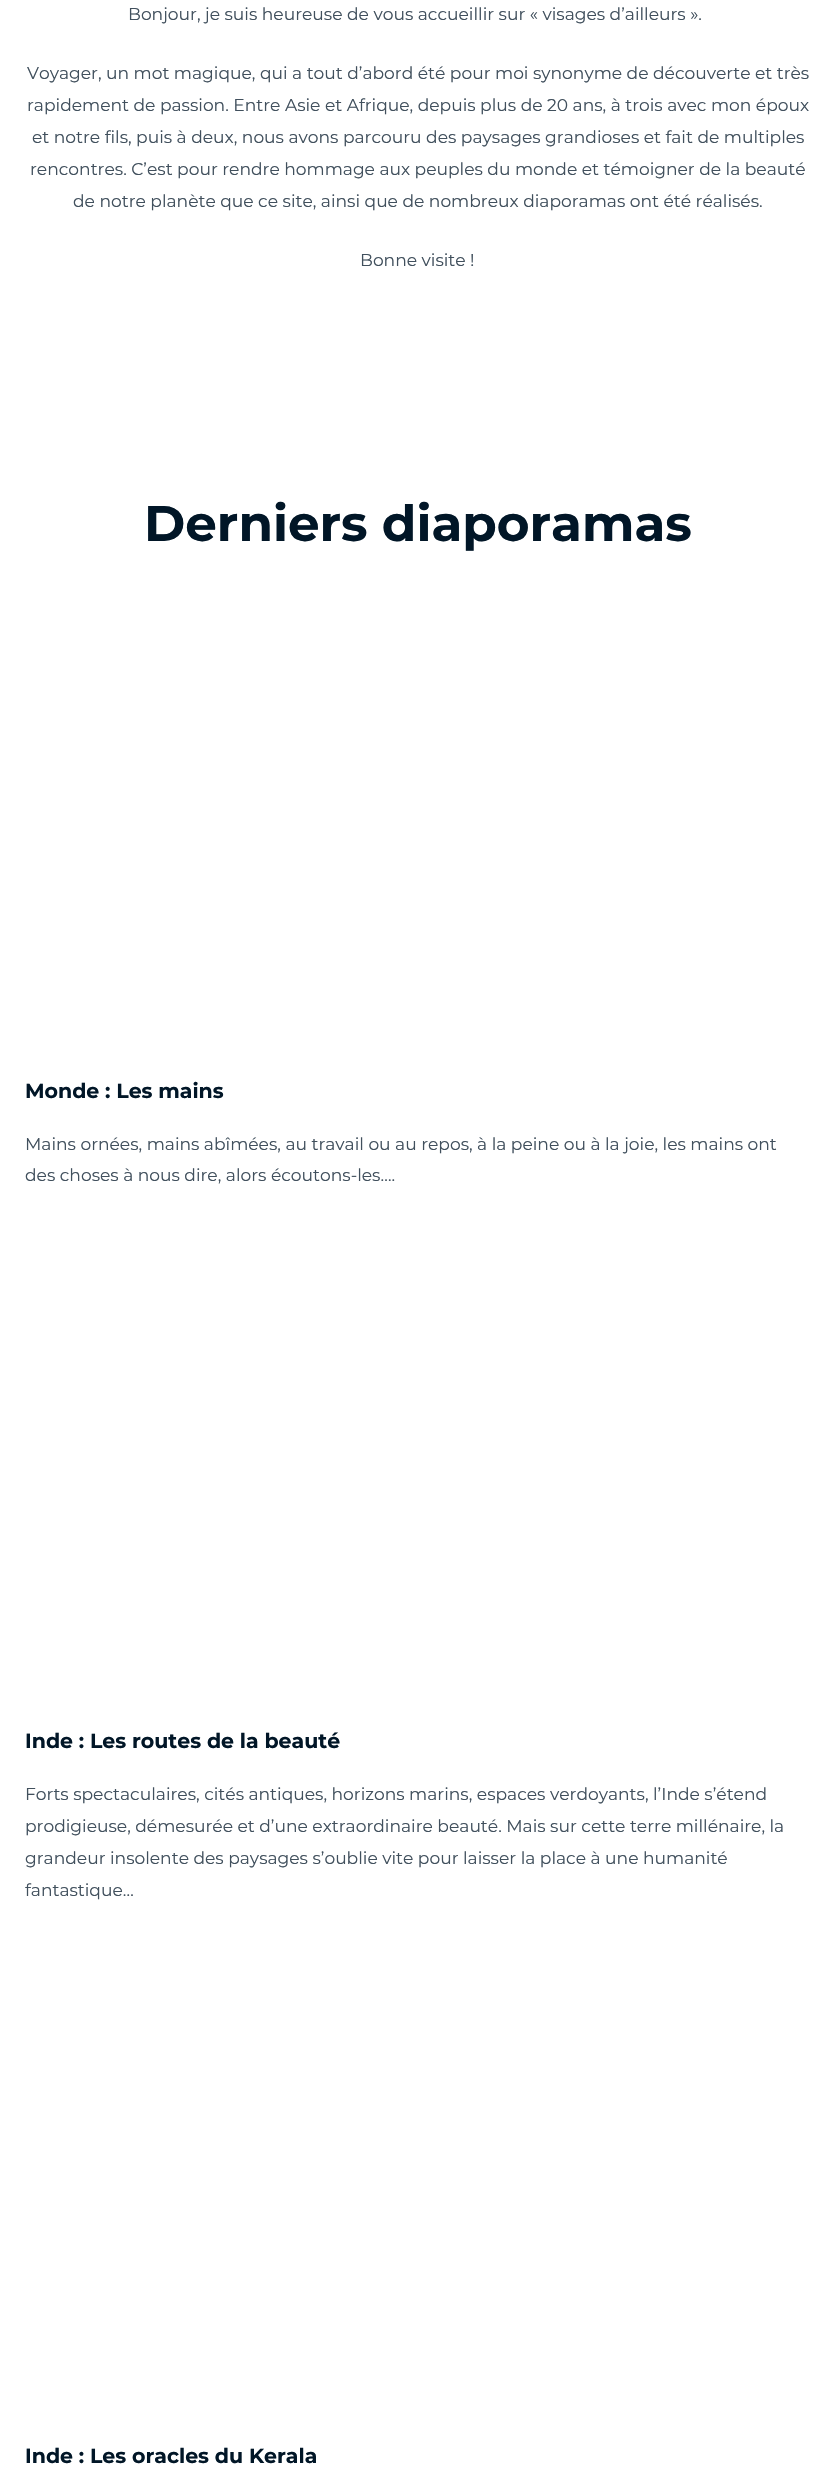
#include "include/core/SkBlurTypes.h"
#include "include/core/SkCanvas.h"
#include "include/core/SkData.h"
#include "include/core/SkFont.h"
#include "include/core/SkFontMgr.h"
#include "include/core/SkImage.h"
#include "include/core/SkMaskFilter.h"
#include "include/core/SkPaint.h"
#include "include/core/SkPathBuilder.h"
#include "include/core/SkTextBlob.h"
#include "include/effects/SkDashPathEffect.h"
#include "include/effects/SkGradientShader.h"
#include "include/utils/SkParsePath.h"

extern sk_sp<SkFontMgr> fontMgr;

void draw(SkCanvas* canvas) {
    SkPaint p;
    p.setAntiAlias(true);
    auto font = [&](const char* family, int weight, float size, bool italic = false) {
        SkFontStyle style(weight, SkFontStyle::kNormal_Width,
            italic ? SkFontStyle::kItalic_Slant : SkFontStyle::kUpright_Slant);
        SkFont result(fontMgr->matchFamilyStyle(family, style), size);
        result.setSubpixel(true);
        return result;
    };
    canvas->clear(0xFFFFFFFF);
    auto font1 = font("Montserrat", 400, 17.1f);
    p.setColor(0xFF41505D);
    {
        const struct { const char* s; float x, y; } items[] = {
            {"Bonjour, je suis heureuse de vous accueillir sur « visages d’ailleurs ».", 128, 20},
            {"Voyager, un mot magique, qui a tout d’abord été pour moi synonyme de découverte et très", 27, 79},
            {"rapidement de passion. Entre Asie et Afrique, depuis plus de 20 ans, à trois avec mon époux", 27, 111},
            {"et notre fils, puis à deux, nous avons parcouru des paysages grandioses et fait de multiples", 32, 143},
            {"rencontres. C’est pour rendre hommage aux peuples du monde et témoigner de la beauté", 30, 175},
            {"de notre planète que ce site, ainsi que de nombreux diaporamas ont été réalisés.", 73, 207},
            {"Bonne visite !", 360, 266},
        };
        for (auto [s, x, y] : items) {
            canvas->drawString(s, x, y, font1, p);
        }
    }
    auto font2 = font("Montserrat", 700, 50);
    p.setColor(0xFF011627);
    canvas->drawString("Derniers diaporamas", 144, 541, font2, p);
    auto font3 = font("Montserrat", 700, 20.5f);
    canvas->drawString("Monde : Les mains", 25, 1098, font3, p);
    p.setColor(0xFF41505D);
    canvas->drawString("Mains ornées, mains abîmées, au travail ou au repos, à la peine ou à la joie, les mains ont", 25, 1150, font1, p);
    canvas->drawString("des choses à nous dire, alors écoutons-les….", 25, 1181, font1, p);
    p.setColor(0xFF011627);
    canvas->drawString("Inde : Les routes de la beauté", 25, 1748, font3, p);
    p.setColor(0xFF41505D);
    {
        const struct { const char* s; float x, y; } items[] = {
            {"Forts spectaculaires, cités antiques, horizons marins, espaces verdoyants, l’Inde s’étend", 25, 1800},
            {"prodigieuse, démesurée et d’une extraordinaire beauté. Mais sur cette terre millénaire, la", 25, 1832},
            {"grandeur insolente des paysages s’oublie vite pour laisser la place à une humanité", 25, 1864},
            {"fantastique…", 25, 1896},
        };
        for (auto [s, x, y] : items) {
            canvas->drawString(s, x, y, font1, p);
        }
    }
    p.setColor(0xFF011627);
    canvas->drawString("Inde : Les oracles du Kerala", 25, 2463, font3, p);
}
